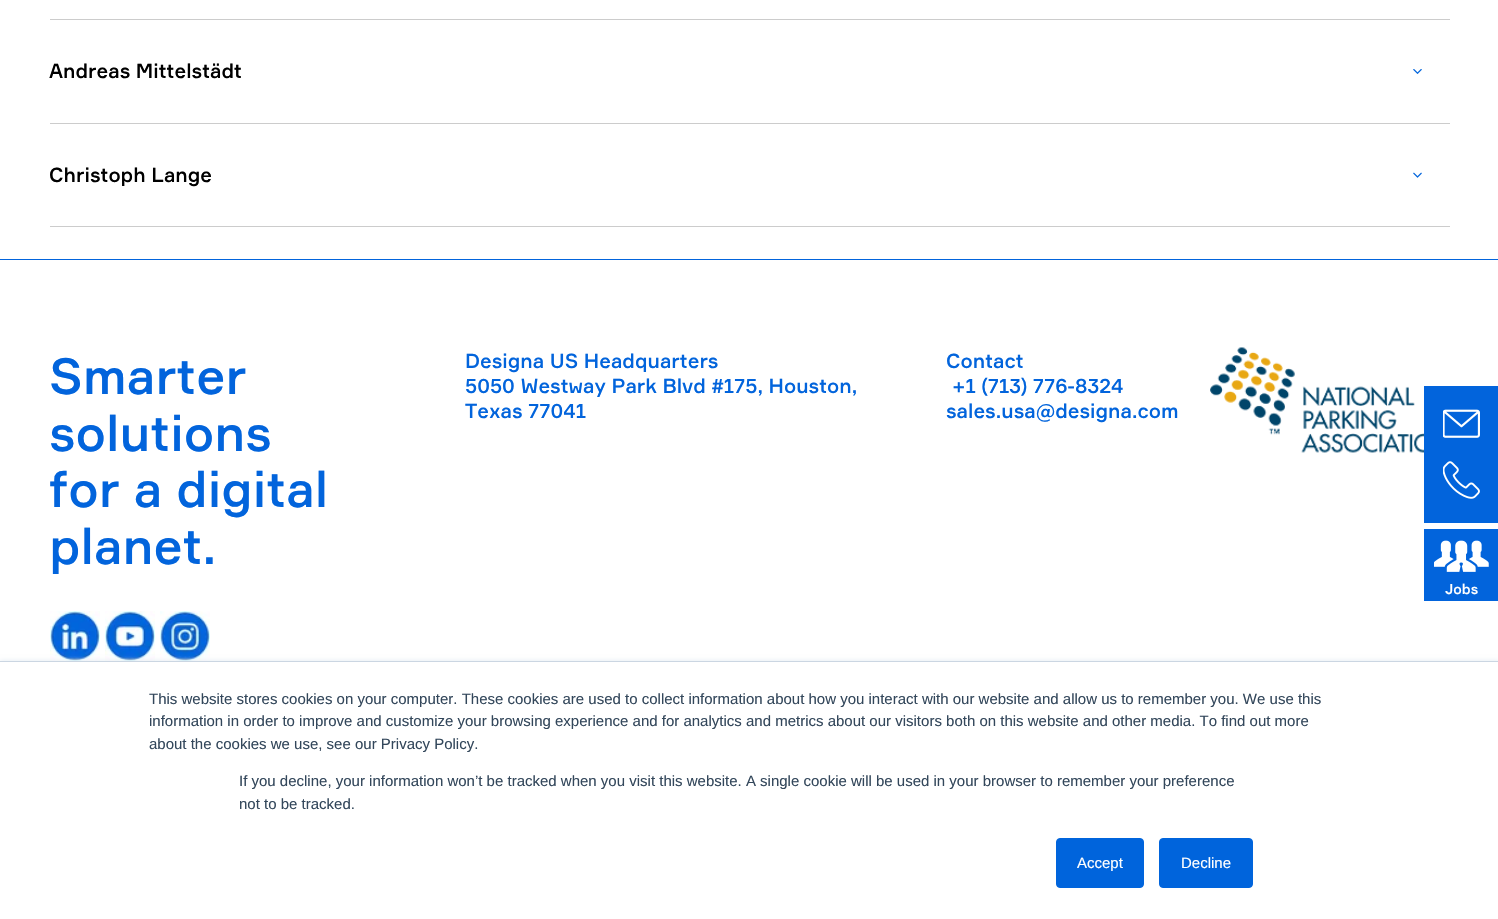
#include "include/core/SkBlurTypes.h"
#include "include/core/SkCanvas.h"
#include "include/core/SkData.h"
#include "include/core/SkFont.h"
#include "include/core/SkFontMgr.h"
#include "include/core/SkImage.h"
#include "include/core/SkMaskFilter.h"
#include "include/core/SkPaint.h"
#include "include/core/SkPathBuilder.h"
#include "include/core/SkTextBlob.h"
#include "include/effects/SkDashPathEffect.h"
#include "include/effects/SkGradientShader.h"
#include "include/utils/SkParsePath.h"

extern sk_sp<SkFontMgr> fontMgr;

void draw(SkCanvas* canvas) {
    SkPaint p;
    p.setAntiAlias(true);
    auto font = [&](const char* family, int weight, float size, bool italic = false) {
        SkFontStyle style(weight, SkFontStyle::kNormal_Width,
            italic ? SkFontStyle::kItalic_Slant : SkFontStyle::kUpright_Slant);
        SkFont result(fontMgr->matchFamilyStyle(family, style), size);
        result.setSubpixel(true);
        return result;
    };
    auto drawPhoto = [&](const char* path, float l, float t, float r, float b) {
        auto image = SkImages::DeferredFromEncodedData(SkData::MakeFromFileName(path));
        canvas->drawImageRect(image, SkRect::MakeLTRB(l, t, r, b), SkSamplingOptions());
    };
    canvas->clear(0xFFFFFFFF);
    p.setColor(0xFFCCCCCC);
    canvas->drawRect(SkRect::MakeLTRB(50, 19, 1450, 20), p);
    auto font1 = font("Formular", 500, 20);
    p.setColor(0xFF000000);
    canvas->drawString("Andreas Mittelstädt", 49, 78, font1, p);
    drawPhoto("media/1.png", 1413, 69, 1422, 74);
    p.setColor(0xFFCCCCCC);
    canvas->drawRect(SkRect::MakeLTRB(50, 123, 1450, 124), p);
    canvas->drawRect(SkRect::MakeLTRB(50, 226, 1450, 227), p);
    p.setColor(0xFF000000);
    canvas->drawString("Christoph Lange", 49, 182, font1, p);
    drawPhoto("media/2.png", 1413, 172, 1422, 178);
    p.setColor(0xFF0264DC);
    canvas->drawRect(SkRect::MakeLTRB(1424, 386, 1498, 523), p);
    drawPhoto("media/3.png", 1443, 409, 1480, 438);
    drawPhoto("media/4.png", 1443, 461, 1480, 499);
    canvas->drawRect(SkRect::MakeLTRB(1424, 529, 1498, 601), p);
    drawPhoto("media/5.png", 1434, 540, 1489, 572);
    auto font2 = font("Formular", 500, 14);
    p.setColor(0xFFFFFFFF);
    canvas->drawString("Jobs", 1445, 594, font2, p);
    p.setColor(0xFF0264DC);
    canvas->drawRect(SkRect::MakeLTRB(0, 259, 1498, 260), p);
    auto font3 = font("Formular", 500, 50);
    {
        const struct { const char* s; float x, y; } items[] = {
            {"Smarter", 49, 394},
            {"solutions", 49, 451},
            {"for a digital", 49, 507},
            {"planet.", 49, 564},
        };
        for (auto [s, x, y] : items) {
            canvas->drawString(s, x, y, font3, p);
        }
    }
    drawPhoto("media/6.png", 50, 611, 100, 661);
    drawPhoto("media/7.png", 105, 611, 155, 661);
    drawPhoto("media/8.png", 160, 611, 210, 661);
    {
        const struct { const char* s; float x, y; } items[] = {
            {"Designa US Headquarters", 465, 368},
            {"5050 Westway Park Blvd #175, Houston,", 465, 393},
            {"Texas 77041", 465, 418},
            {"Contact", 946, 368},
            {"+1 (713) 776-8324", 952, 393},
            {"sales.usa@designa.com", 946, 418},
        };
        for (auto [s, x, y] : items) {
            canvas->drawString(s, x, y, font1, p);
        }
    }
    drawPhoto("media/9.png", 1210, 347, 1424, 453);
    p.setColor(0xFFEAF0F6);
    p.setMaskFilter(SkMaskFilter::MakeBlur(kNormal_SkBlurStyle, 2));
    canvas->drawRect(SkRect::MakeLTRB(0, 660, 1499, 919), p);
    p.setMaskFilter(nullptr);
    p.setColor(0xFFFFFFFF);
    canvas->drawRect(SkRect::MakeLTRB(0, 662, 1498, 919), p);
    p.setColor(0xFFCBD6E2);
    canvas->drawRect(SkRect::MakeLTRB(0, 661, 1498, 662), p);
    auto font4 = font("Liberation Sans", 400, 15);
    p.setColor(0xFF33475B);
    {
        const struct { const char* s; float x, y; } items[] = {
            {"This website stores cookies on your computer. These cookies are used to collect information about how you interact with our website and allow us to remember you. We use this", 149, 704},
            {"information in order to improve and customize your browsing experience and for analytics and metrics about our visitors both on this website and other media. To find out more", 149, 726},
            {"about the cookies we use, see our Privacy Policy.", 149, 749},
            {"If you decline, your information won’t be tracked when you visit this website. A single cookie will be used in your browser to remember your preference", 239, 786},
            {"not to be tracked.", 239, 809},
        };
        for (auto [s, x, y] : items) {
            canvas->drawString(s, x, y, font4, p);
        }
    }
    p.setColor(0xFF0064DC);
    canvas->drawRoundRect(SkRect::MakeLTRB(1056.5f, 838.5f, 1143.5f, 887.5f), 3.5f, 3.5f, p);
    p.setStyle(SkPaint::kStroke_Style);
    p.setStrokeWidth(1);
    canvas->drawRoundRect(SkRect::MakeLTRB(1056.5f, 838.5f, 1143.5f, 887.5f), 3.5f, 3.5f, p);
    p.setStyle(SkPaint::kFill_Style);
    p.setColor(0xFFFFFFFF);
    canvas->drawString("Accept", 1077, 868, font4, p);
    p.setColor(0xFF0064DC);
    canvas->drawRoundRect(SkRect::MakeLTRB(1159.5f, 838.5f, 1252.5f, 887.5f), 3.5f, 3.5f, p);
    p.setStyle(SkPaint::kStroke_Style);
    canvas->drawRoundRect(SkRect::MakeLTRB(1159.5f, 838.5f, 1252.5f, 887.5f), 3.5f, 3.5f, p);
    p.setStyle(SkPaint::kFill_Style);
    p.setColor(0xFFFFFFFF);
    canvas->drawString("Decline", 1181, 868, font4, p);
}
